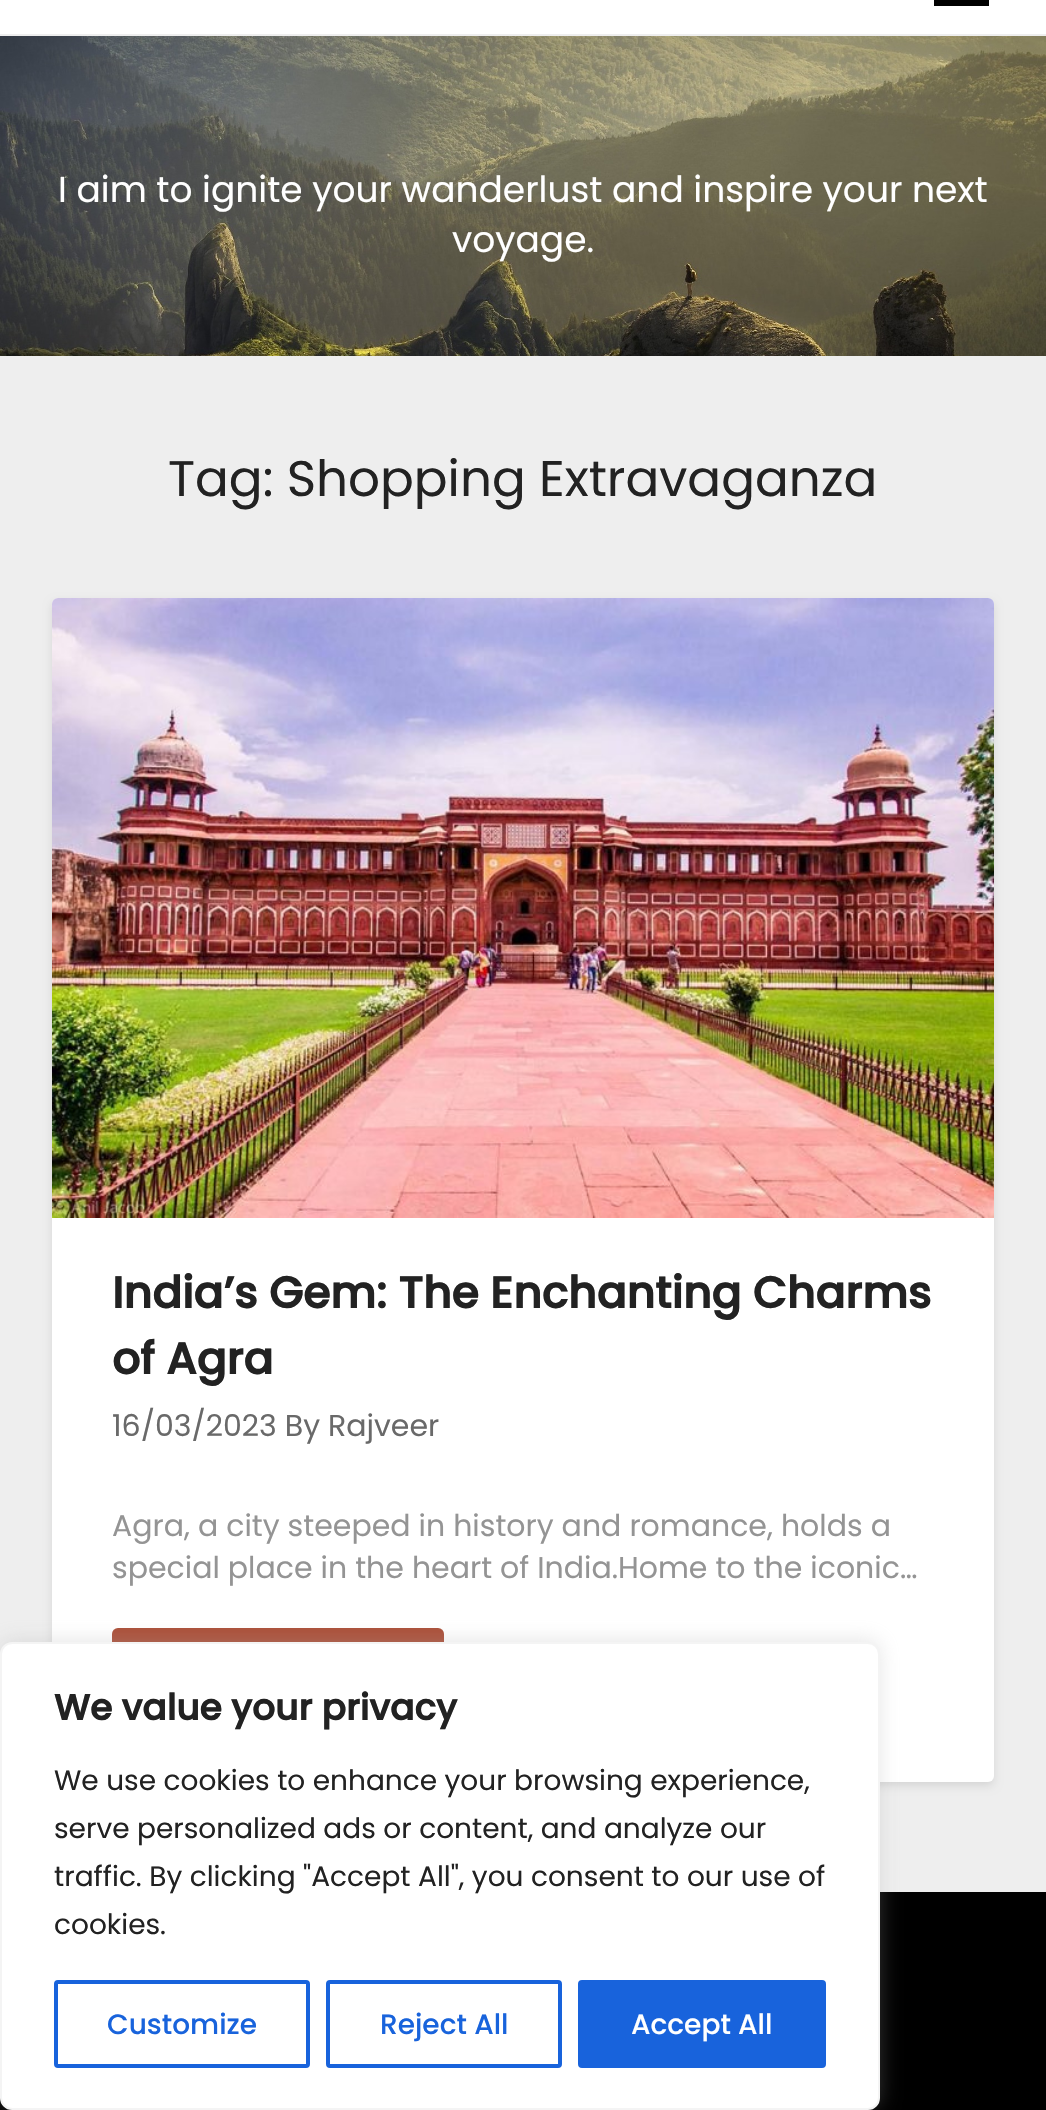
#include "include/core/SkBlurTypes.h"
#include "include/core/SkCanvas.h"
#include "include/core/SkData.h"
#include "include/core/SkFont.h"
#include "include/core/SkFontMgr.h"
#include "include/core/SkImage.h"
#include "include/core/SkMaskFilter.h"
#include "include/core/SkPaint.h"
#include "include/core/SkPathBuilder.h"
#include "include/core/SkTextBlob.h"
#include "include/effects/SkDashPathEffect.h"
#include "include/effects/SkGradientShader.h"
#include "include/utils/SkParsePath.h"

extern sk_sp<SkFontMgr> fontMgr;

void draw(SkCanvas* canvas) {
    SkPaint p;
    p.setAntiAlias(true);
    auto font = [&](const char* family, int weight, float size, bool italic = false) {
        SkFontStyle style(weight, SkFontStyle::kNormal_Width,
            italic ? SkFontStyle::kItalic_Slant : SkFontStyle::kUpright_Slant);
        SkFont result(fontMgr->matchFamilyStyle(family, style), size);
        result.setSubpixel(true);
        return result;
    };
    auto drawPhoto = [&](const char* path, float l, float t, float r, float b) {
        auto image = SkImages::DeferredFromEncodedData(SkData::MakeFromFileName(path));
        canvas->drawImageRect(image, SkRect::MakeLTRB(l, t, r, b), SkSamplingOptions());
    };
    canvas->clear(0xFFEEEEEE);
    p.setColor(0xFFFFFFFF);
    canvas->drawRect(SkRect::MakeLTRB(0, 0, 1046, 34), p);
    p.setColor(0xFF000000);
    canvas->drawRect(SkRect::MakeLTRB(934, 0, 989, 6), p);
    drawPhoto("media/1.png", 0, 36, 1046, 356);
    auto font1 = font("Poppins", 400, 36);
    p.setColor(0xFFFFFFFF);
    canvas->drawString("I aim to ignite your wanderlust and inspire your next", 58, 202, font1, p);
    canvas->drawString("voyage.", 452, 252, font1, p);
    auto font2 = font("Poppins", 400, 50);
    p.setColor(0xFF222222);
    canvas->drawString("Tag: Shopping Extravaganza", 168, 496, font2, p);
    p.setColor(0x1A000000);
    p.setMaskFilter(SkMaskFilter::MakeBlur(kNormal_SkBlurStyle, 4));
    canvas->drawRoundRect(SkRect::MakeLTRB(52, 602, 994, 1786), 6, 6, p);
    p.setMaskFilter(nullptr);
    p.setColor(0xFFFFFFFF);
    canvas->drawRoundRect(SkRect::MakeLTRB(52, 598, 994, 1782), 6, 6, p);
    drawPhoto("media/2.png", 52, 598, 994, 1218);
    auto font3 = font("Poppins", 700, 44);
    p.setColor(0xFF222222);
    canvas->drawString("India’s Gem: The Enchanting Charms", 112, 1308, font3, p);
    canvas->drawString("of Agra", 112, 1374, font3, p);
    auto font4 = font("Poppins", 400, 30);
    p.setColor(0xFF696969);
    canvas->drawString("16/03/2023 By Rajveer", 112, 1436, font4, p);
    p.setColor(0xFF949494);
    canvas->drawString("Agra, a city steeped in history and romance, holds a", 112, 1536, font4, p);
    canvas->drawString("special place in the heart of India.Home to the iconic…", 112, 1578, font4, p);
    p.setColor(0xFFAB4F38);
    canvas->drawRoundRect(SkRect::MakeLTRB(112, 1628, 444, 1722), 6, 6, p);
    p.setColor(0xFF000000);
    canvas->drawRect(SkRect::MakeLTRB(0, 1892, 1046, 2110), p);
    p.setColor(0x4DACABAB);
    p.setMaskFilter(SkMaskFilter::MakeBlur(kNormal_SkBlurStyle, 10));
    canvas->drawRoundRect(SkRect::MakeLTRB(0, 1640, 880, 2108), 12, 12, p);
    p.setMaskFilter(nullptr);
    p.setColor(0xFFFFFFFF);
    canvas->drawRoundRect(SkRect::MakeLTRB(1, 1643, 879, 2109), 11, 11, p);
    p.setStyle(SkPaint::kStroke_Style);
    p.setStrokeWidth(2);
    p.setColor(0xFFF4F4F4);
    canvas->drawRoundRect(SkRect::MakeLTRB(1, 1643, 879, 2109), 11, 11, p);
    auto font5 = font("Poppins", 700, 36);
    p.setStyle(SkPaint::kFill_Style);
    p.setColor(0xFF222222);
    canvas->drawString("We value your privacy", 54, 1720, font5, p);
    auto font6 = font("Poppins", 400, 28);
    {
        const struct { const char* s; float x, y; } items[] = {
            {"We use cookies to enhance your browsing experience,", 54, 1790},
            {"serve personalized ads or content, and analyze our", 54, 1838},
            {"traffic. By clicking \"Accept All\", you consent to our use of", 54, 1886},
            {"cookies.", 54, 1934},
        };
        for (auto [s, x, y] : items) {
            canvas->drawString(s, x, y, font6, p);
        }
    }
    p.setStyle(SkPaint::kStroke_Style);
    p.setStrokeWidth(4);
    p.setColor(0xFF1863DC);
    canvas->drawRoundRect(SkRect::MakeLTRB(56, 1982, 308, 2066), 2, 2, p);
    auto font7 = font("Poppins", 500, 28);
    p.setStyle(SkPaint::kFill_Style);
    canvas->drawString("Customize", 107, 2034, font7, p);
    p.setStyle(SkPaint::kStroke_Style);
    canvas->drawRoundRect(SkRect::MakeLTRB(328, 1982, 560, 2066), 2, 2, p);
    p.setStyle(SkPaint::kFill_Style);
    canvas->drawString("Reject All", 380, 2034, font7, p);
    canvas->drawRoundRect(SkRect::MakeLTRB(580, 1982, 824, 2066), 2, 2, p);
    p.setStyle(SkPaint::kStroke_Style);
    canvas->drawRoundRect(SkRect::MakeLTRB(580, 1982, 824, 2066), 2, 2, p);
    p.setStyle(SkPaint::kFill_Style);
    p.setColor(0xFFFFFFFF);
    canvas->drawString("Accept All", 631, 2034, font7, p);
}
